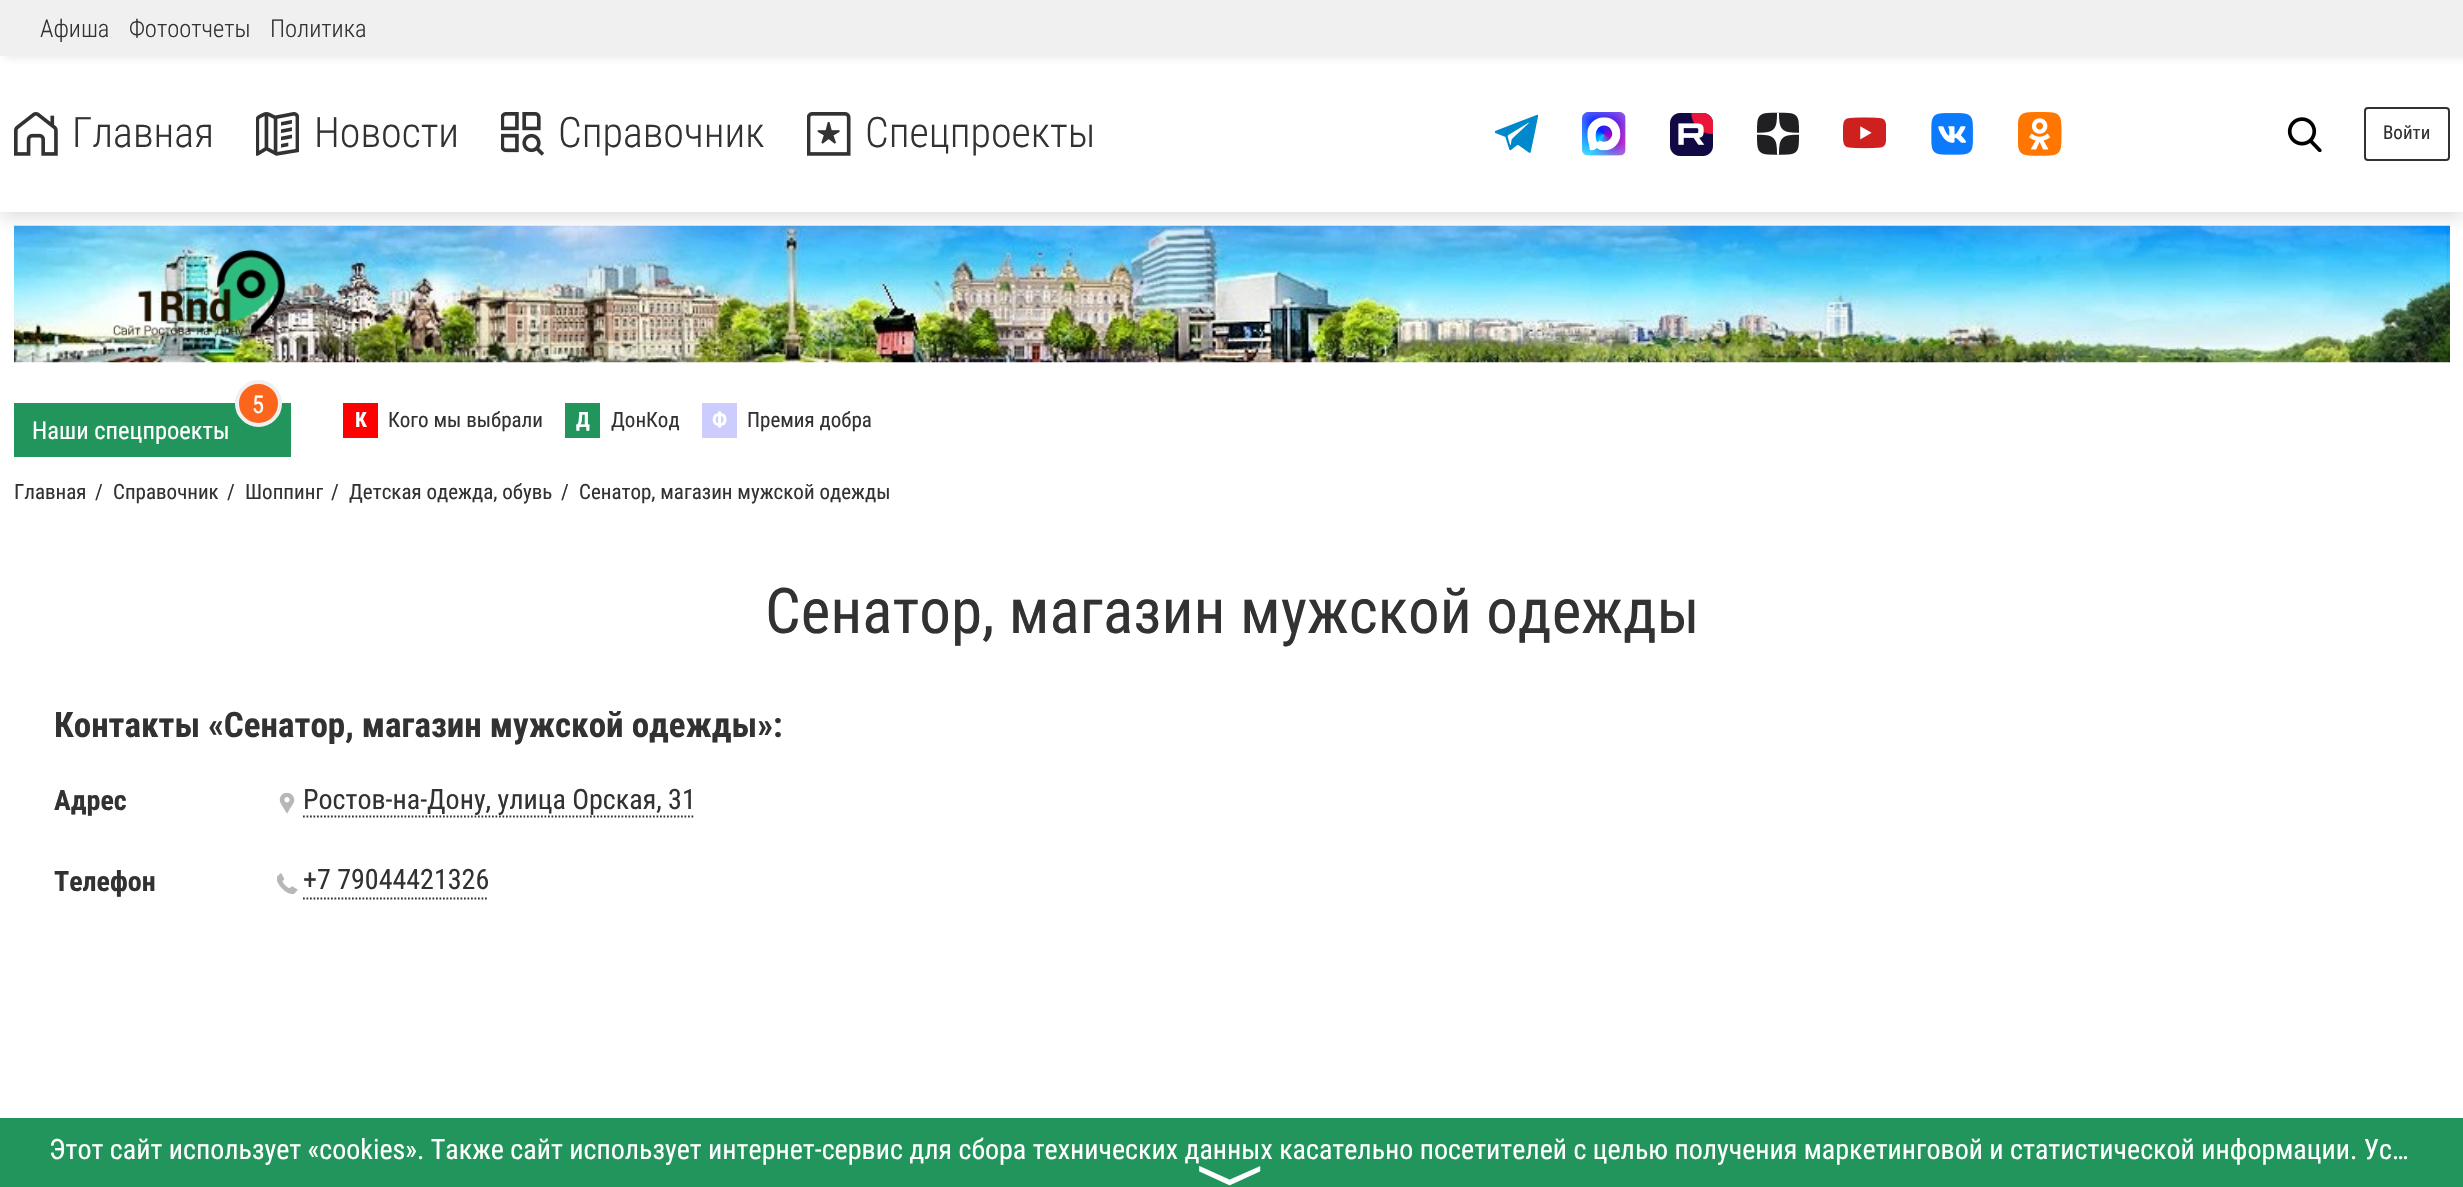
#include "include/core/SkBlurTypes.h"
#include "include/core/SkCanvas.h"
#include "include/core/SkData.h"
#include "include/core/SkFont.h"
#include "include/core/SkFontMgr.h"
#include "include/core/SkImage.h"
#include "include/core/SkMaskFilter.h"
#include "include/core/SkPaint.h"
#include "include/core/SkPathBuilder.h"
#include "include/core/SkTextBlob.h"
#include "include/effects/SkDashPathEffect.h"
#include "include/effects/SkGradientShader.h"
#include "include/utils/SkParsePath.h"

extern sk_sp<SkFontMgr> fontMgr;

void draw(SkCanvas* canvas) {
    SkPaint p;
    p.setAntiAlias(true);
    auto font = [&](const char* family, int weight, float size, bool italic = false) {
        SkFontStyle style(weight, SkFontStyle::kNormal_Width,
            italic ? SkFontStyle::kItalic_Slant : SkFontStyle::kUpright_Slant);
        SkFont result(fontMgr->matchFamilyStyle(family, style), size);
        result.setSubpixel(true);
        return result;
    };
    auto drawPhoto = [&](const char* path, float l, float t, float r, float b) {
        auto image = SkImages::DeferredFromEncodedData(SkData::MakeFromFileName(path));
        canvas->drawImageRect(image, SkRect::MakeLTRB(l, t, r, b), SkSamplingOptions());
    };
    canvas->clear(0xFFFFFFFF);
    drawPhoto("media/13.png", 14, 225, 2450, 363);
    p.setColor(0x334E4E4E);
    p.setMaskFilter(SkMaskFilter::MakeBlur(kNormal_SkBlurStyle, 9));
    canvas->drawRect(SkRect::MakeLTRB(0, 5, 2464, 217), p);
    p.setMaskFilter(nullptr);
    p.setColor(0xFFFFFFFF);
    canvas->drawRect(SkRect::MakeLTRB(0, 56, 2463, 212), p);
    p.setColor(0x26323232);
    p.setMaskFilter(SkMaskFilter::MakeBlur(kNormal_SkBlurStyle, 5));
    canvas->drawRect(SkRect::MakeLTRB(5, 0, 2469, 56), p);
    p.setMaskFilter(nullptr);
    p.setColor(0xFFF0F0F0);
    canvas->drawRect(SkRect::MakeLTRB(0, 0, 2463, 56), p);
    auto font1 = font("Roboto Condensed", 300, 24.5f);
    p.setColor(0xFF323232);
    {
        const struct { const char* s; float x, y; } items[] = {
            {"Афиша", 40, 37},
            {"Фотоотчеты", 129, 37},
            {"Политика", 270, 37},
        };
        for (auto [s, x, y] : items) {
            canvas->drawString(s, x, y, font1, p);
        }
    }
    drawPhoto("media/1.png", 14, 112, 58, 156);
    auto font2 = font("Roboto Condensed", 300, 42);
    canvas->drawString("Главная", 72, 147, font2, p);
    drawPhoto("media/2.png", 256, 112, 299, 156);
    canvas->drawString("Новости", 314, 147, font2, p);
    drawPhoto("media/3.png", 501, 112, 544, 156);
    canvas->drawString("Справочник", 558, 147, font2, p);
    drawPhoto("media/4.png", 807, 112, 851, 156);
    canvas->drawString("Спецпроекты", 865, 147, font2, p);
    drawPhoto("media/5.png", 1495, 114, 1538, 153);
    drawPhoto("media/6.png", 1582, 112, 1626, 156);
    drawPhoto("media/7.png", 1670, 113, 1713, 156);
    drawPhoto("media/8.png", 1757, 112, 1799, 155);
    drawPhoto("media/9.png", 1843, 117, 1886, 149);
    drawPhoto("media/10.png", 1931, 113, 1973, 155);
    drawPhoto("media/11.png", 2018, 112, 2062, 156);
    drawPhoto("media/12.png", 2287, 117, 2322, 152);
    p.setStyle(SkPaint::kStroke_Style);
    p.setStrokeWidth(2);
    canvas->drawRoundRect(SkRect::MakeLTRB(2365, 108, 2449, 160), 3, 3, p);
    auto font3 = font("Roboto Condensed", 400, 19);
    p.setStyle(SkPaint::kFill_Style);
    canvas->drawString("Войти", 2383, 139, font3, p);
    drawPhoto("media/14.png", 113, 249, 286, 338);
    p.setColor(0xFF22955D);
    canvas->drawRect(SkRect::MakeLTRB(14, 403, 291, 457), p);
    p.setColor(0xFFFB661C);
    canvas->drawCircle(258.5f, 403.5f, 21.5f, p);
    p.setStyle(SkPaint::kStroke_Style);
    p.setStrokeWidth(4);
    p.setColor(0xFFF0F0F0);
    canvas->drawCircle(258.5f, 403.5f, 21.5f, p);
    auto font4 = font("Roboto Condensed", 400, 24.5f);
    p.setStyle(SkPaint::kFill_Style);
    p.setColor(0xFFFFFFFF);
    canvas->drawString("5", 252, 413, font4, p);
    canvas->drawString("Наши спецпроекты", 32, 439, font4, p);
    p.setColor(0xFFFF0000);
    canvas->drawRect(SkRect::MakeLTRB(343, 403, 378, 438), p);
    auto font5 = font("Roboto Condensed", 700, 21);
    p.setColor(0xFFFFFFFF);
    canvas->drawString("К", 355, 427, font5, p);
    auto font6 = font("Roboto Condensed", 400, 21);
    p.setColor(0xFF323232);
    canvas->drawString("Кого мы выбрали", 388, 427, font6, p);
    p.setColor(0xFF22955D);
    canvas->drawRect(SkRect::MakeLTRB(565, 403, 600, 438), p);
    p.setColor(0xFFFFFFFF);
    canvas->drawString("Д", 576, 427, font5, p);
    p.setColor(0xFF323232);
    canvas->drawString("ДонКод", 611, 427, font6, p);
    p.setColor(0xFFCCCCFF);
    canvas->drawRect(SkRect::MakeLTRB(702, 403, 737, 438), p);
    p.setColor(0xFFFFFFFF);
    canvas->drawString("Ф", 712, 427, font5, p);
    p.setColor(0xFF323232);
    {
        const struct { const char* s; float x, y; } items[] = {
            {"Премия добра", 747, 427},
            {"Главная", 14, 499},
            {"/", 95, 499},
            {"Справочник", 113, 499},
            {"/", 227, 499},
            {"Шоппинг", 245, 499},
            {"/", 331, 499},
            {"Детская одежда, обувь", 349, 499},
            {"/", 561, 499},
            {"Сенатор, магазин мужской одежды", 579, 499},
        };
        for (auto [s, x, y] : items) {
            canvas->drawString(s, x, y, font6, p);
        }
    }
    auto font7 = font("Roboto Condensed", 400, 63);
    canvas->drawString("Сенатор, магазин мужской одежды", 765, 633, font7, p);
    auto font8 = font("Roboto Condensed", 700, 35);
    canvas->drawString("Контакты «Сенатор, магазин мужской одежды»:", 54, 737, font8, p);
    auto font9 = font("Roboto Condensed", 700, 28);
    canvas->drawString("Адрес", 54, 810, font9, p);
    drawPhoto("media/15.png", 279, 793, 295, 814);
    p.setStyle(SkPaint::kStroke_Style);
    p.setStrokeWidth(1.8f);
    p.setPathEffect(SkDashPathEffect::Make({{1.75f, 1.75f}}, 0));
    canvas->drawPath(SkPathBuilder().moveTo(303, 816.5f).lineTo(695, 816.5f).detach(), p);
    p.setPathEffect(nullptr);
    auto font10 = font("Roboto Condensed", 400, 28);
    p.setStyle(SkPaint::kFill_Style);
    canvas->drawString("Ростов-на-Дону, улица Орская, 31", 303, 809, font10, p);
    canvas->drawString("Телефон", 54, 891, font9, p);
    drawPhoto("media/16.png", 277, 873, 298, 894);
    p.setStyle(SkPaint::kStroke_Style);
    p.setPathEffect(SkDashPathEffect::Make({{1.75f, 1.75f}}, 0));
    canvas->drawPath(SkPathBuilder().moveTo(303, 898.5f).lineTo(488, 898.5f).detach(), p);
    p.setPathEffect(nullptr);
    p.setStyle(SkPaint::kFill_Style);
    canvas->drawString("+7 79044421326", 303, 889, font10, p);
    p.setColor(0xFF22955D);
    canvas->drawRect(SkRect::MakeLTRB(0, 1118, 2463, 1187), p);
    p.setColor(0xFFFFFFFF);
    canvas->drawString("Этот сайт использует «cookies». Также сайт использует интернет-сервис для сбора технических данных касательно посетителей с целью получения маркетинговой и статистической информации. Ус…", 49, 1159, font10, p);
    auto font11 = font("FreeSans", 400, 70);
    canvas->save();
    canvas->rotate(90, 1209, 1164);
    canvas->drawString("〉", 1209, 1164, font11, p);
    canvas->restore();
}
